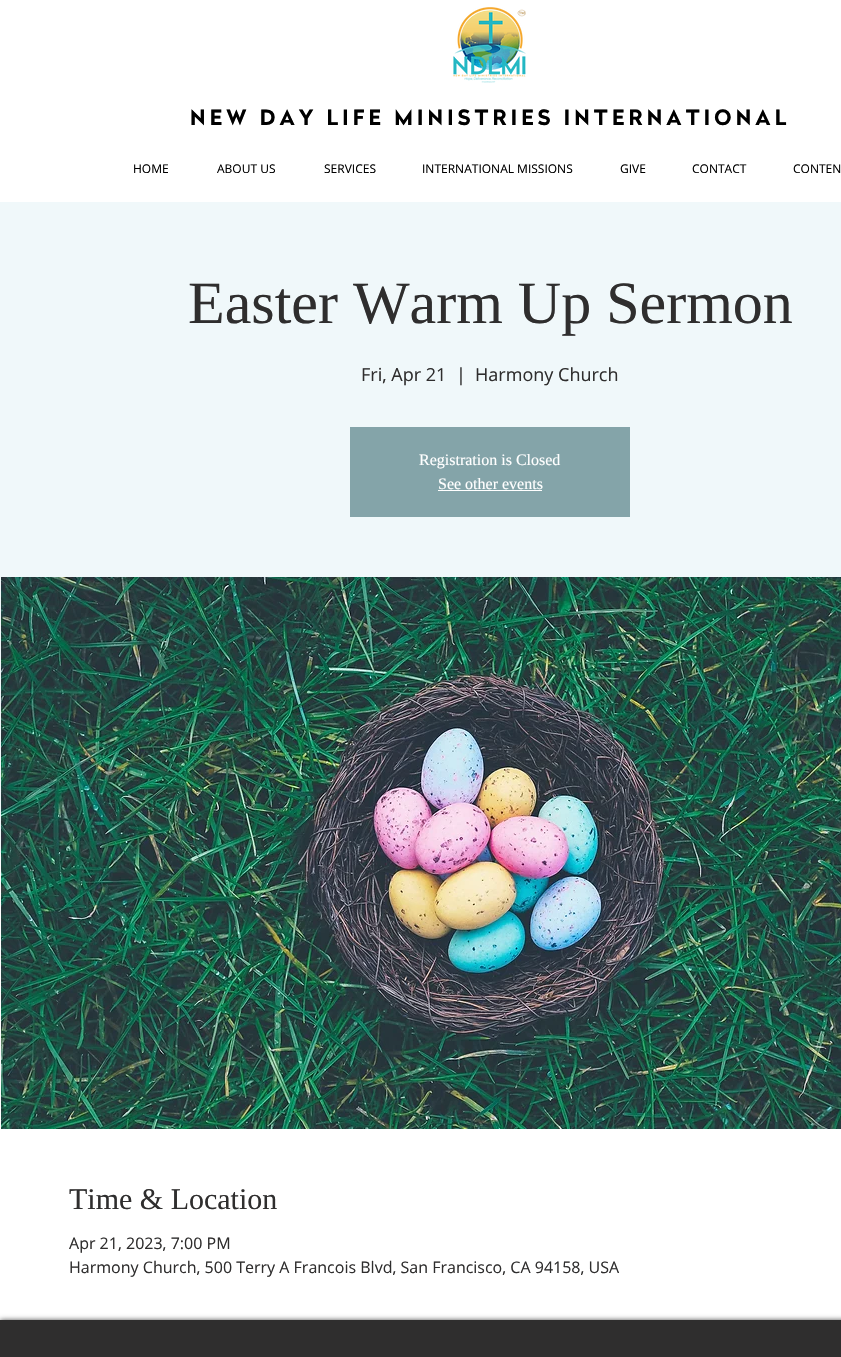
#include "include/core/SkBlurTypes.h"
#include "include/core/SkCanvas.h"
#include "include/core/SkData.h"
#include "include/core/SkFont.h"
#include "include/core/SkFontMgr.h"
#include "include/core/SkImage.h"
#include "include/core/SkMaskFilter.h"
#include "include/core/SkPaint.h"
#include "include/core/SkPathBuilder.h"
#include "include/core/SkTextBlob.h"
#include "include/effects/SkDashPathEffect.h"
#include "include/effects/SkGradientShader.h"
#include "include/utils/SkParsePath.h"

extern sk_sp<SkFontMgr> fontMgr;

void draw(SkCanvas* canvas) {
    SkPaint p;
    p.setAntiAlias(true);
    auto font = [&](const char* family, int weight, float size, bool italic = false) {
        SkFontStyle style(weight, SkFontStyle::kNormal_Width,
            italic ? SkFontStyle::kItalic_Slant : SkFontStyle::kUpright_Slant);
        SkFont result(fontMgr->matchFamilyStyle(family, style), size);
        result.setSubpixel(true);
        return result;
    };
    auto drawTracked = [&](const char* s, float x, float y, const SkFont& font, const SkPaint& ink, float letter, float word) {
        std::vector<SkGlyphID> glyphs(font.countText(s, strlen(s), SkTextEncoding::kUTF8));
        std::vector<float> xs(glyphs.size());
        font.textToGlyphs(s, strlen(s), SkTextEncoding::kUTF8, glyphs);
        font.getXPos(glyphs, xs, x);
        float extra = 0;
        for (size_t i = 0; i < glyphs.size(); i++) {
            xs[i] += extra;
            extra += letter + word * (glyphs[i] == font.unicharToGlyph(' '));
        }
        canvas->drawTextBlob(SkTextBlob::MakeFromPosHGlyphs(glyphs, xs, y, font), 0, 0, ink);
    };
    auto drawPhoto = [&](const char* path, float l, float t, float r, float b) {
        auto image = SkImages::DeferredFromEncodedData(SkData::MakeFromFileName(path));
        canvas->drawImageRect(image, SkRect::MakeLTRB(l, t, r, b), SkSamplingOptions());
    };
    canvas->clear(0xFFFFFFFF);
    drawPhoto("media/1.png", 453, 7, 526, 83);
    auto font1 = font("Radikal", 700, 21);
    p.setColor(0xFF000000);
    drawTracked("NEW DAY LIFE MINISTRIES INTERNATIONAL", 190, 125, font1, p, 4.2f, 0);
    auto font2 = font("Open Sans", 400, 12);
    {
        const struct { const char* s; float x, y; } items[] = {
            {"HOME", 133, 173},
            {"ABOUT US", 217, 173},
            {"SERVICES", 324, 173},
            {"INTERNATIONAL MISSIONS", 422, 173},
            {"GIVE", 620, 173},
            {"CONTACT", 692, 173},
            {"CONTEN", 793, 173},
        };
        for (auto [s, x, y] : items) {
            canvas->drawString(s, x, y, font2, p);
        }
    }
    p.setColor(0xFFF0F8FA);
    canvas->drawRect(SkRect::MakeLTRB(0, 202, 841, 853), p);
    auto font3 = font("Liberation Serif", 400, 60);
    p.setColor(0xFF2F2E2E);
    canvas->drawString("Easter Warm Up Sermon", 188, 323, font3, p);
    auto font4 = font("Open Sans", 400, 18);
    {
        const struct { const char* s; float x, y; } items[] = {
            {"Fri, Apr 21", 361, 381},
            {"|", 456, 381},
            {"Harmony Church", 475, 381},
        };
        for (auto [s, x, y] : items) {
            canvas->drawString(s, x, y, font4, p);
        }
    }
    p.setColor(0xFF84A4A9);
    canvas->drawRect(SkRect::MakeLTRB(350, 427, 630, 517), p);
    auto font5 = font("Liberation Serif", 400, 16);
    p.setColor(0xFFFFFFFF);
    canvas->drawString("Registration is Closed", 419, 465, font5, p);
    canvas->drawString("See other events", 438, 489, font5, p);
    canvas->drawRect(SkRect::MakeLTRB(438, 490, 542, 491), p);
    drawPhoto("media/2.png", 1, 577, 841, 1129);
    auto font6 = font("Liberation Serif", 400, 30);
    p.setColor(0xFF2F2E2E);
    canvas->drawString("Time & Location", 69, 1209, font6, p);
    auto font7 = font("Open Sans", 400, 16);
    canvas->drawString("Apr 21, 2023, 7:00 PM", 69, 1249, font7, p);
    canvas->drawString("Harmony Church, 500 Terry A Francois Blvd, San Francisco, CA 94158, USA", 69, 1273, font7, p);
    p.setColor(0xB3000000);
    p.setMaskFilter(SkMaskFilter::MakeBlur(kNormal_SkBlurStyle, 2.5f));
    canvas->drawRect(SkRect::MakeLTRB(0, 1320, 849, 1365), p);
    p.setMaskFilter(nullptr);
    p.setColor(0xFF2F2E2E);
    canvas->drawRect(SkRect::MakeLTRB(0, 1320, 841, 1357), p);
}
